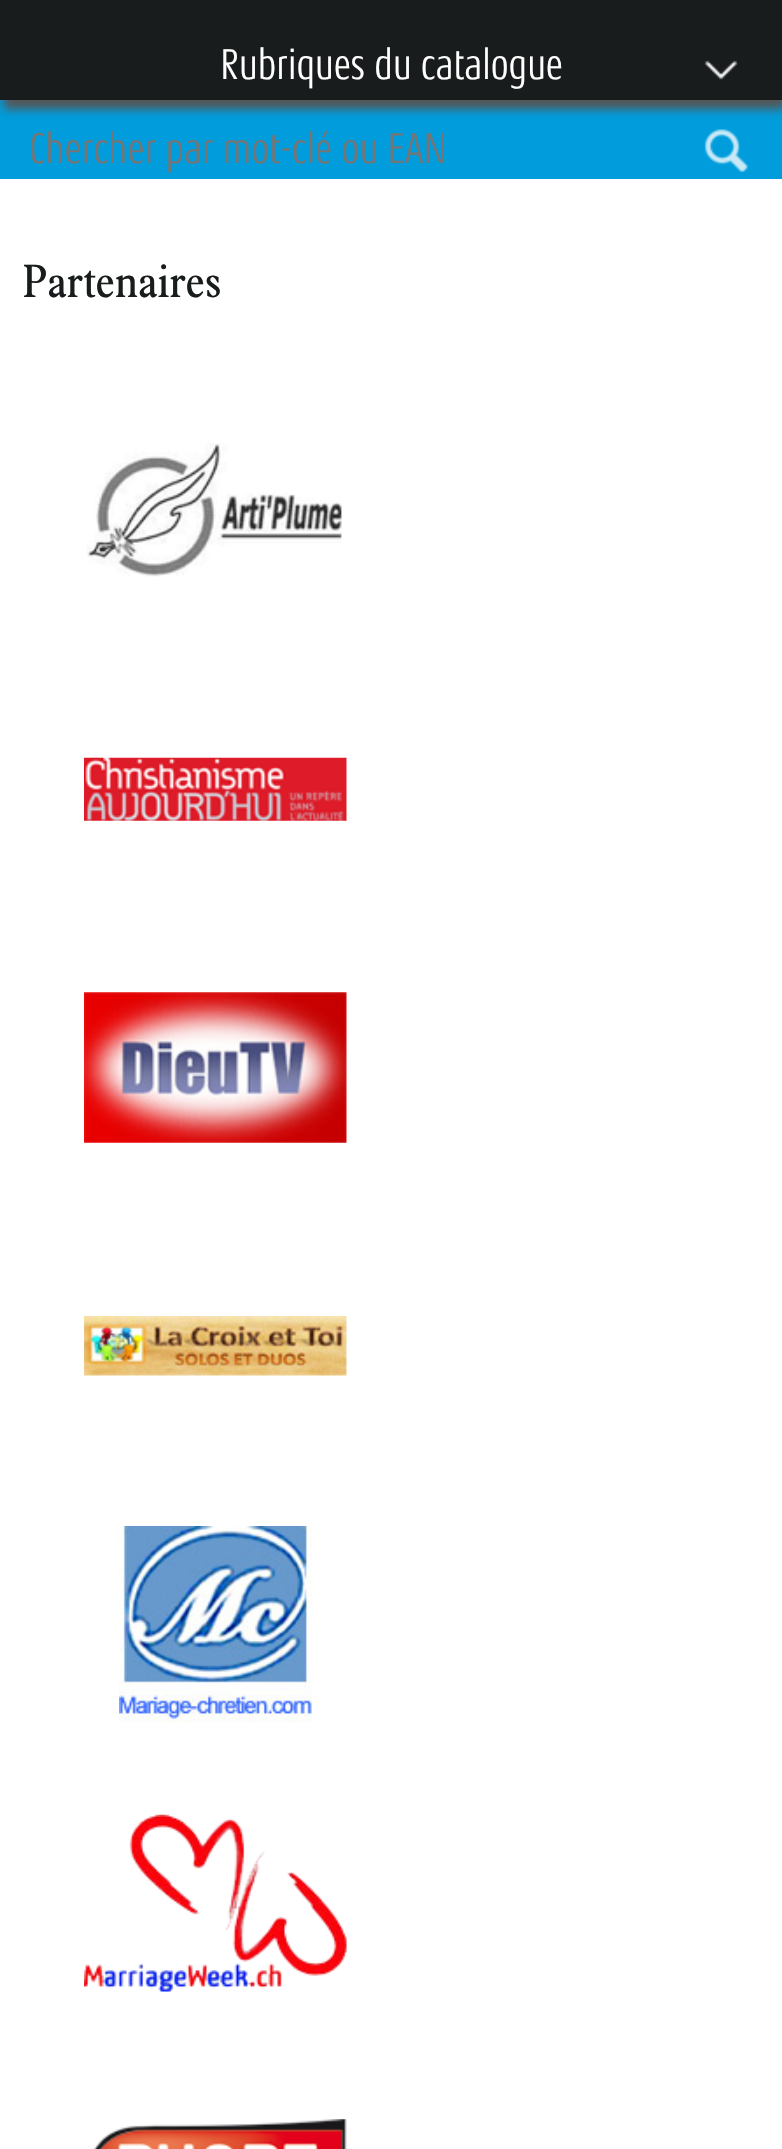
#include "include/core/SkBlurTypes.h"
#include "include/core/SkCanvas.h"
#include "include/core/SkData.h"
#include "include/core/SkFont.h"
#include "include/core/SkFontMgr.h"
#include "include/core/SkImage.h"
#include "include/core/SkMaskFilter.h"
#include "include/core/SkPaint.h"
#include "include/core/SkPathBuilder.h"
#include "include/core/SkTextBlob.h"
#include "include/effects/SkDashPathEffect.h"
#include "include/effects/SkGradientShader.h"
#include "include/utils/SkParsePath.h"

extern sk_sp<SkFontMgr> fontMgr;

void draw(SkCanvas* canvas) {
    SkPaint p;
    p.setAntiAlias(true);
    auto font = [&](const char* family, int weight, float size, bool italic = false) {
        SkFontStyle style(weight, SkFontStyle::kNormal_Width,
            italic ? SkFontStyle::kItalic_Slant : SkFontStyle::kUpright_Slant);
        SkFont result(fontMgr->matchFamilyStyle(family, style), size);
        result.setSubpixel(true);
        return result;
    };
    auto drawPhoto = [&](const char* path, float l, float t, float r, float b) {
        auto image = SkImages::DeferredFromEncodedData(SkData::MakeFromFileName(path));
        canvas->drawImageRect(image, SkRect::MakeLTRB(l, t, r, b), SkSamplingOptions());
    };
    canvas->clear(0xFFFFFFFF);
    p.setColor(0xFF009CDB);
    canvas->drawRect(SkRect::MakeLTRB(0, 100, 782, 179), p);
    p.setColor(0xFF555555);
    p.setMaskFilter(SkMaskFilter::MakeBlur(kNormal_SkBlurStyle, 4.5f));
    canvas->drawRect(SkRect::MakeLTRB(4, 9, 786, 109), p);
    p.setMaskFilter(nullptr);
    p.setColor(0xFF191C1C);
    canvas->drawRect(SkRect::MakeLTRB(0, 0, 782, 100), p);
    auto font1 = font("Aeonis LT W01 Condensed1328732", 400, 43.75f);
    p.setColor(0xFFFFFFFF);
    canvas->drawString("Rubriques du catalogue", 220, 79, font1, p);
    drawPhoto("media/1.png", 704, 60, 738, 80);
    p.setColor(0xFF757575);
    canvas->drawString("Chercher par mot-clé ou EAN", 29, 163, font1, p);
    drawPhoto("media/2.png", 704, 129, 748, 172);
    auto font2 = font("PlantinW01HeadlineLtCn", 400, 47);
    p.setColor(0xFF191C1C);
    canvas->drawString("Partenaires", 23, 297, font2, p);
    drawPhoto("media/3.png", 86, 443, 342, 577);
    drawPhoto("media/4.png", 84, 757, 347, 821);
    drawPhoto("media/5.png", 84, 992, 347, 1143);
    drawPhoto("media/6.png", 84, 1316, 347, 1376);
    drawPhoto("media/7.png", 119, 1526, 312, 1723);
    drawPhoto("media/8.png", 84, 1814, 347, 1992);
    drawPhoto("media/9.png", 94, 2119, 347, 2149);
}
